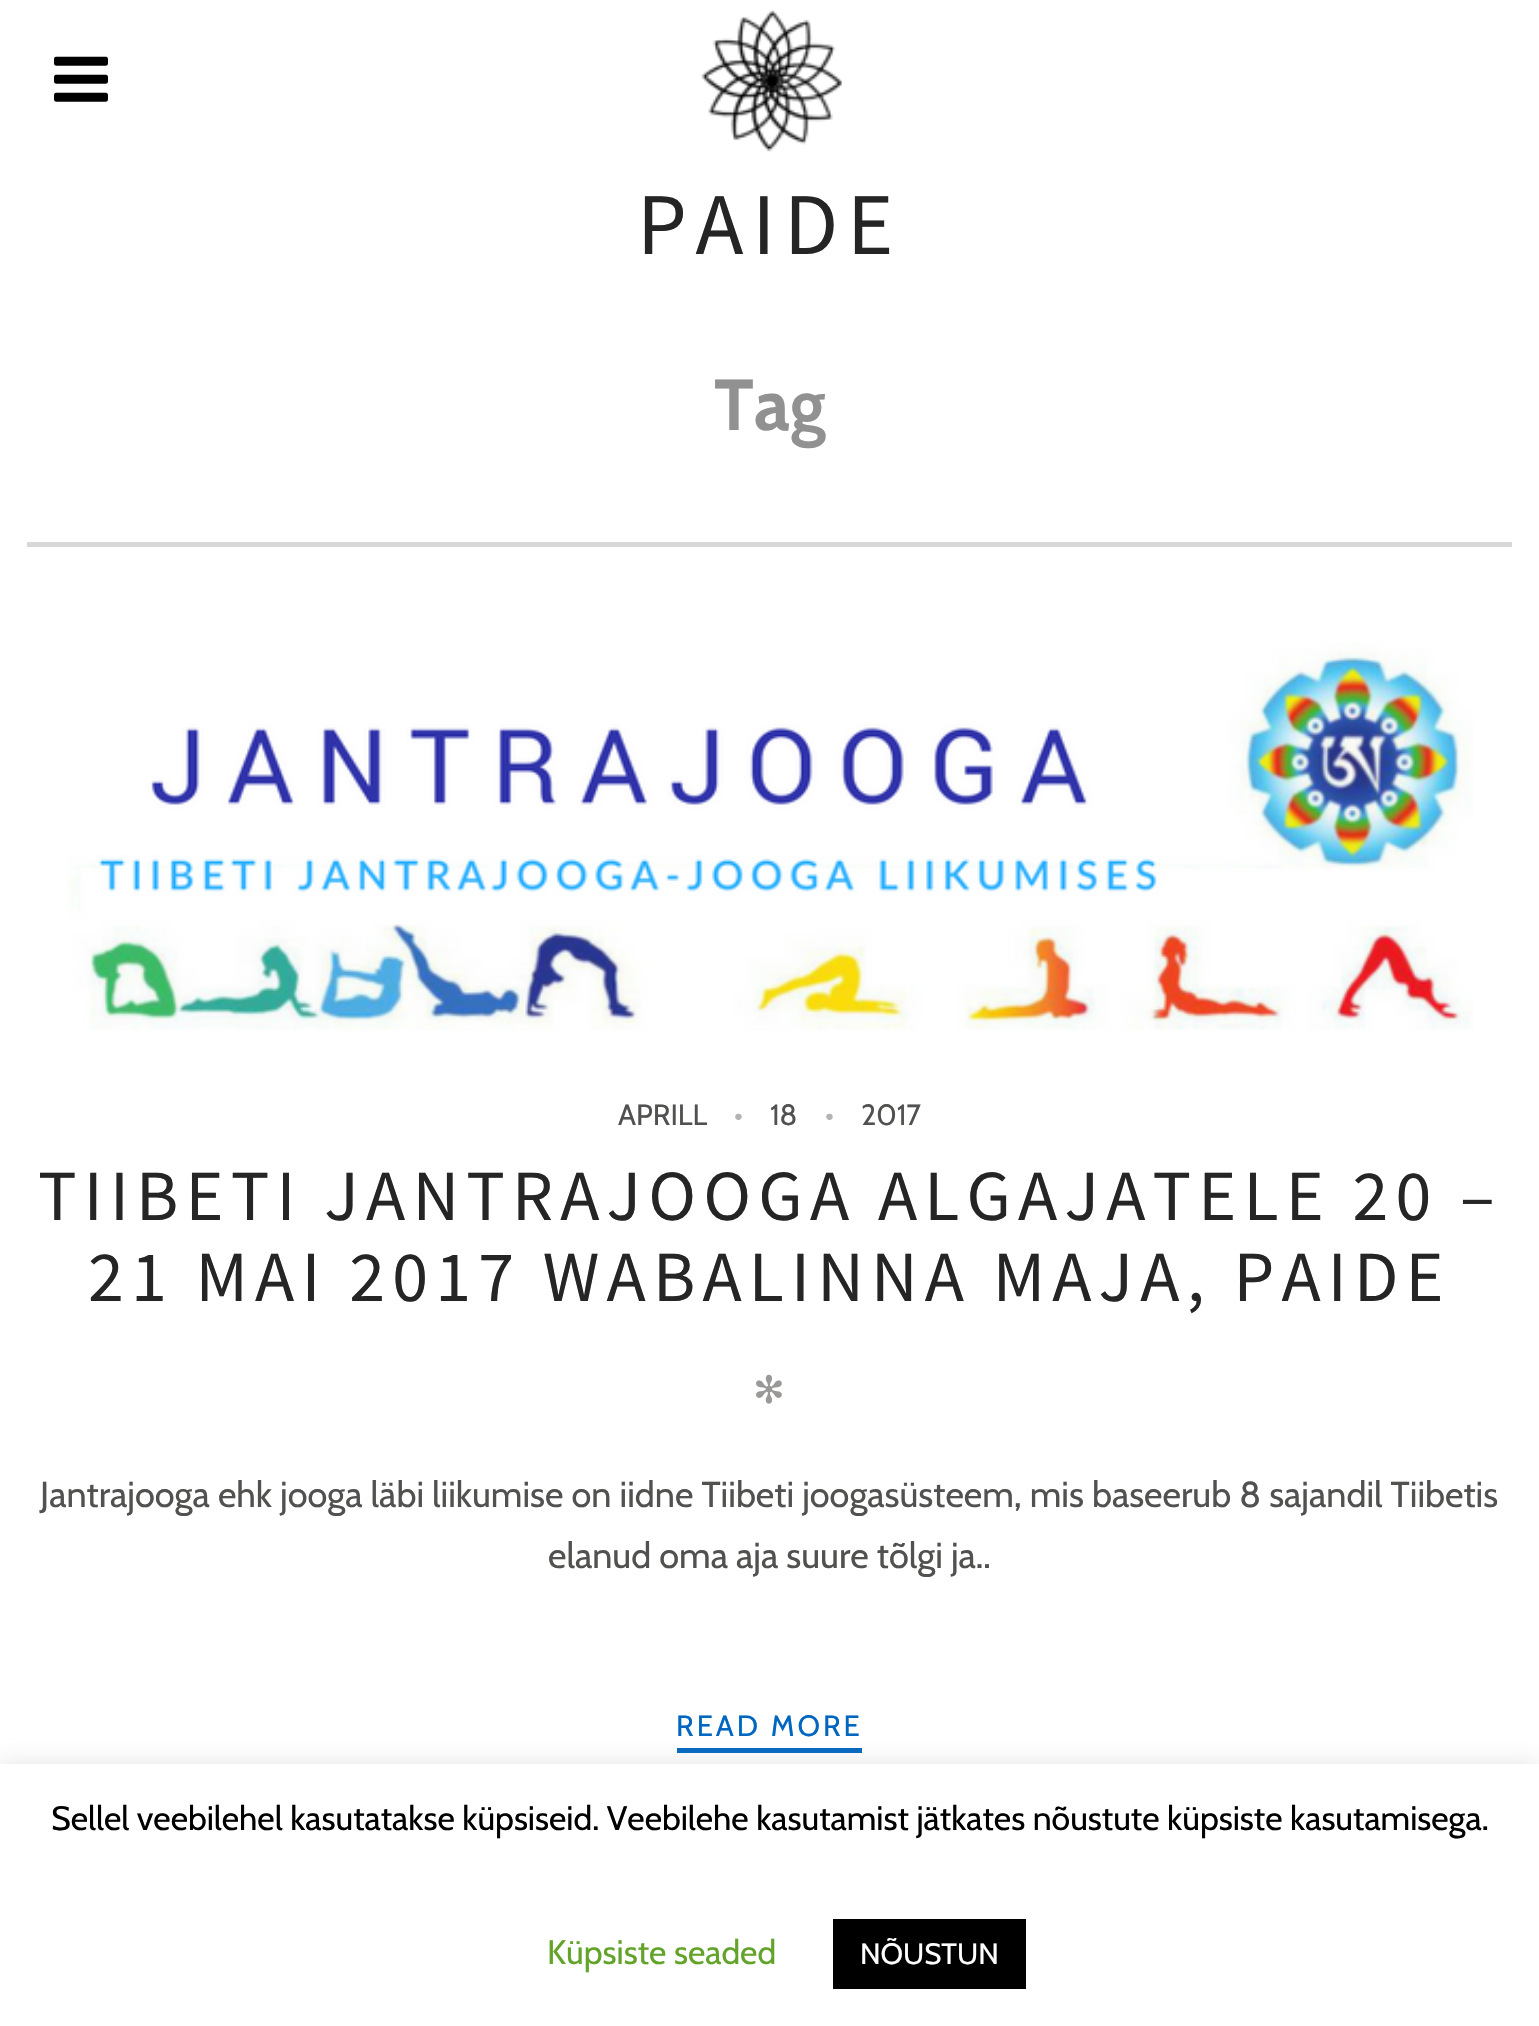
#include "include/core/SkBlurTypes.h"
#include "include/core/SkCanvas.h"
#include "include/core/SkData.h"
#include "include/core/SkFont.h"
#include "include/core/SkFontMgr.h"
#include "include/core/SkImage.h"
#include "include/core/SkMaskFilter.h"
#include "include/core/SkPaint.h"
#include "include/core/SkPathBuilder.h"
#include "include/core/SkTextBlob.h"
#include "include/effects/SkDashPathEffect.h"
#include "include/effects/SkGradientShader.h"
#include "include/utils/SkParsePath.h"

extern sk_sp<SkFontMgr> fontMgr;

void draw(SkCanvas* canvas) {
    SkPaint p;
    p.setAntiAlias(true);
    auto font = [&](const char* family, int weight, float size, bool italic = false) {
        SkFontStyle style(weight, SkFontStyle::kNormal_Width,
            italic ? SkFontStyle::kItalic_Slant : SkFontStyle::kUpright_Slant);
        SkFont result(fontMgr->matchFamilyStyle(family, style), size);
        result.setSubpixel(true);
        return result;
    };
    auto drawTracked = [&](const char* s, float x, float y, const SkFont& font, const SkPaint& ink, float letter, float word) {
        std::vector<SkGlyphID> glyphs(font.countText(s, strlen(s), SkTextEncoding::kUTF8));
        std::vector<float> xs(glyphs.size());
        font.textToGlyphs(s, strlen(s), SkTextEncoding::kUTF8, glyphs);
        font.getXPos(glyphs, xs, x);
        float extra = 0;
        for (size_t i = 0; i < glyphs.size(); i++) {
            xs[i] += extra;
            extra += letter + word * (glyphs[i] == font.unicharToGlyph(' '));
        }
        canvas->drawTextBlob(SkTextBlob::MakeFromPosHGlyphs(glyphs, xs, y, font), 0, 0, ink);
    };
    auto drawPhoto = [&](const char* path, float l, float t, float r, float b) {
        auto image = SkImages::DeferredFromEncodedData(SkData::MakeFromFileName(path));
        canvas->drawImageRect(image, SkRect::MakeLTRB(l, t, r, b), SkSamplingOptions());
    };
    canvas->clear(0xFFFFFFFF);
    drawPhoto("media/1.png", 54, 56, 108, 102);
    drawPhoto("media/2.png", 701, 10, 842, 152);
    auto font1 = font("Source Sans Pro", 400, 88);
    p.setColor(0xFF262526);
    drawTracked("PAIDE", 637, 254, font1, p, 8.75f, 0);
    auto font2 = font("Cabin", 700, 72);
    p.setColor(0xFF919191);
    canvas->drawString("Tag", 714, 430, font2, p);
    p.setColor(0xFFD8D8D8);
    canvas->drawRect(SkRect::MakeLTRB(27, 542, 1512, 547), p);
    drawPhoto("media/3.png", 67, 642, 1473, 1031);
    auto font3 = font("Cabin", 400, 29.25f);
    p.setColor(0xFF515150);
    canvas->drawString("APRILL", 618, 1125, font3, p);
    p.setColor(0xFFB3B3B3);
    canvas->drawString("•", 734, 1125, font3, p);
    p.setColor(0xFF515150);
    canvas->drawString("18", 770, 1125, font3, p);
    p.setColor(0xFFB3B3B3);
    canvas->drawString("•", 825, 1125, font3, p);
    p.setColor(0xFF515150);
    canvas->drawString("2017", 861, 1125, font3, p);
    auto font4 = font("Source Sans Pro", 400, 72);
    p.setColor(0xFF262526);
    drawTracked("TIIBETI JANTRAJOOGA ALGAJATELE 20 –", 38, 1220, font4, p, 7.2f, 0);
    drawTracked("21 MAI 2017 WABALINNA MAJA, PAIDE", 88, 1301, font4, p, 7.2f, 0);
    auto font5 = font("DejaVu Sans", 400, 38);
    p.setColor(0xFF9A9998);
    canvas->drawString("✻", 753, 1403, font5, p);
    auto font6 = font("Cabin", 400, 36);
    p.setColor(0xFF515150);
    canvas->drawString("Jantrajooga ehk jooga läbi liikumise on iidne Tiibeti joogasüsteem, mis baseerub 8 sajandil Tiibetis", 40, 1507, font6, p);
    canvas->drawString("elanud oma aja suure tõlgi ja..", 548, 1568, font6, p);
    p.setColor(0xFF0066BF);
    canvas->drawRect(SkRect::MakeLTRB(677, 1748, 862, 1753), p);
    drawTracked("READ MORE", 676, 1736, font3, p, 3, 0);
    p.setColor(0x4DACABAB);
    p.setMaskFilter(SkMaskFilter::MakeBlur(kNormal_SkBlurStyle, 11));
    canvas->drawRect(SkRect::MakeLTRB(0, 1762, 1539, 2025), p);
    p.setMaskFilter(nullptr);
    p.setColor(0xFFFFFFFF);
    canvas->drawRect(SkRect::MakeLTRB(0, 1764, 1539, 2026), p);
    auto font7 = font("Cabin", 400, 33.75f);
    p.setColor(0xFF000000);
    canvas->drawString("Sellel veebilehel kasutatakse küpsiseid. Veebilehe kasutamist jätkates nõustute küpsiste kasutamisega.", 51, 1830, font7, p);
    p.setColor(0xFF62A329);
    canvas->drawString("Küpsiste seaded", 547, 1964, font7, p);
    p.setColor(0xFF000000);
    canvas->drawRect(SkRect::MakeLTRB(833, 1919, 1026, 1989), p);
    p.setColor(0xFFFFFFFF);
    canvas->drawString("NÕUSTUN", 860, 1964, font3, p);
}
